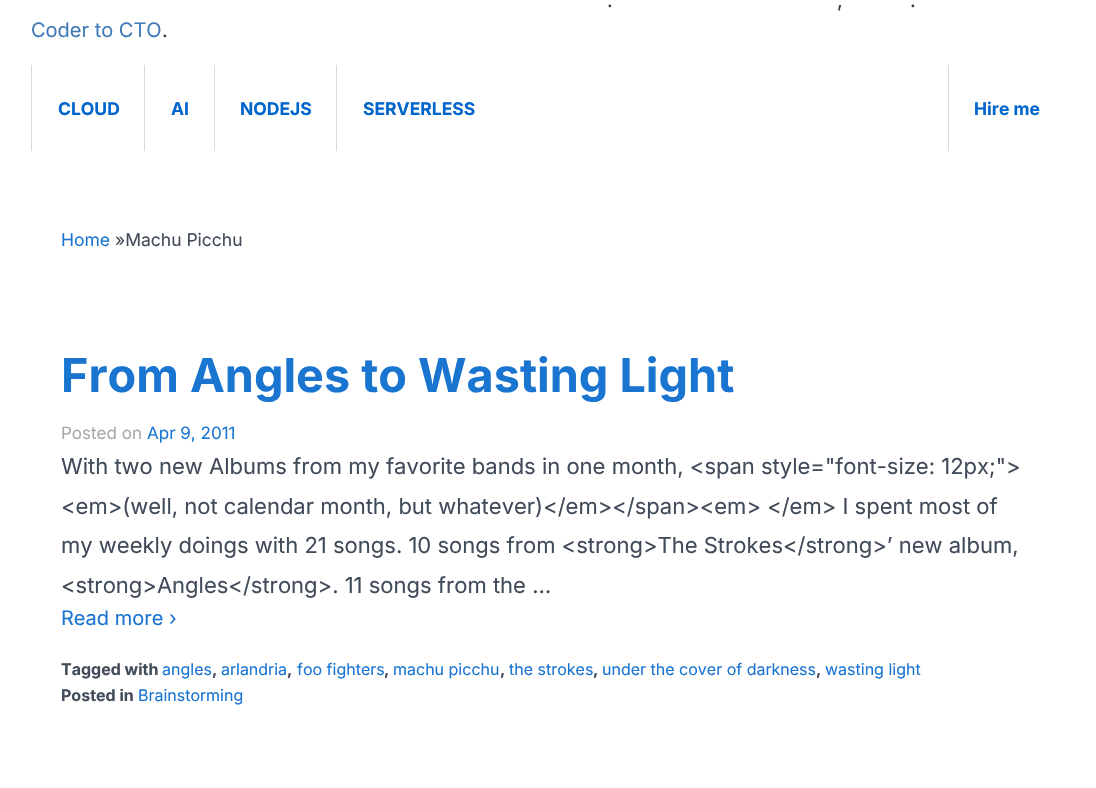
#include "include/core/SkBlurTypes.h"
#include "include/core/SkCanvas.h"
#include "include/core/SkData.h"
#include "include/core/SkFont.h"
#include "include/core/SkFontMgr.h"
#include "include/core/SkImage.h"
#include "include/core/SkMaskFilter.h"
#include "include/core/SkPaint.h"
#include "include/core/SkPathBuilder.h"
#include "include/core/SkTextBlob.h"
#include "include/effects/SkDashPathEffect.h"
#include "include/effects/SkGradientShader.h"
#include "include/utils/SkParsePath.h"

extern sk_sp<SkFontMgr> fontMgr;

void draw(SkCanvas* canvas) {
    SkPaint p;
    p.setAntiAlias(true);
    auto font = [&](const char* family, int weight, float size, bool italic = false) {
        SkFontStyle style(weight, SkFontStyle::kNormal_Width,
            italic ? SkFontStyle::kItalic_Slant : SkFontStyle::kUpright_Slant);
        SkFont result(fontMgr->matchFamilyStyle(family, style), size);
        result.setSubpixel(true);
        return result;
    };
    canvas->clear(0xFFFFFFFF);
    auto font1 = font("Inter", 400, 20);
    p.setColor(0xFF2D3748);
    {
        const struct { const char* s; float x, y; } items[] = {
            {".", 607, 7},
            {",", 837, 7},
            {".", 910, 7},
        };
        for (auto [s, x, y] : items) {
            canvas->drawString(s, x, y, font1, p);
        }
    }
    p.setColor(0xFF407BB8);
    canvas->drawString("Coder to CTO", 31, 37, font1, p);
    p.setColor(0xFF2D3748);
    canvas->drawString(".", 162, 37, font1, p);
    p.setColor(0xFFD9D9D9);
    canvas->drawRect(SkRect::MakeLTRB(31, 65, 32, 151), p);
    auto font2 = font("Inter", 700, 17.5f);
    p.setColor(0xFF0066CC);
    canvas->drawString("CLOUD", 58, 115, font2, p);
    p.setColor(0xFFD9D9D9);
    canvas->drawRect(SkRect::MakeLTRB(144, 65, 145, 151), p);
    p.setColor(0xFF0066CC);
    canvas->drawString("AI", 171, 115, font2, p);
    p.setColor(0xFFD9D9D9);
    canvas->drawRect(SkRect::MakeLTRB(214, 65, 215, 151), p);
    p.setColor(0xFF0066CC);
    canvas->drawString("NODEJS", 240, 115, font2, p);
    p.setColor(0xFFD9D9D9);
    canvas->drawRect(SkRect::MakeLTRB(336, 65, 337, 151), p);
    p.setColor(0xFF0066CC);
    canvas->drawString("SERVERLESS", 363, 115, font2, p);
    p.setColor(0xFFD9D9D9);
    canvas->drawRect(SkRect::MakeLTRB(948, 65, 949, 151), p);
    p.setColor(0xFF0066CC);
    canvas->drawString("Hire me", 974, 115, font2, p);
    auto font3 = font("Inter", 400, 17.5f);
    p.setColor(0xFF1A75D1);
    canvas->drawString("Home", 61, 246, font3, p);
    p.setColor(0xFF424B5A);
    canvas->drawString("»Machu Picchu", 115, 246, font3, p);
    auto font4 = font("Inter", 700, 46.75f);
    p.setColor(0xFF1A75D1);
    canvas->drawString("From Angles to Wasting Light", 61, 392, font4, p);
    auto font5 = font("Inter", 400, 17);
    p.setColor(0xFFA9A9A9);
    canvas->drawString("Posted on", 61, 439, font5, p);
    p.setColor(0xFF1A75D1);
    canvas->drawString("Apr 9, 2011", 147, 439, font5, p);
    auto font6 = font("Inter", 400, 22);
    p.setColor(0xFF424B5A);
    {
        const struct { const char* s; float x, y; } items[] = {
            {"With two new Albums from my favorite bands in one month, <span style=\"font-size: 12px;\">", 61, 474},
            {"<em>(well, not calendar month, but whatever)</em></span><em> </em> I spent most of", 61, 514},
            {"my weekly doings with 21 songs. 10 songs from <strong>The Strokes</strong>’ new album,", 61, 553},
            {"<strong>Angles</strong>. 11 songs from the …", 61, 593},
        };
        for (auto [s, x, y] : items) {
            canvas->drawString(s, x, y, font6, p);
        }
    }
    p.setColor(0xFF1A75D1);
    canvas->drawString("Read more ›", 61, 625, font1, p);
    auto font7 = font("Inter", 700, 16);
    p.setColor(0xFF424B5A);
    canvas->drawString("Tagged with", 61, 675, font7, p);
    auto font8 = font("Inter", 400, 16);
    p.setColor(0xFF1A75D1);
    canvas->drawString("angles", 162, 675, font8, p);
    p.setColor(0xFF424B5A);
    canvas->drawString(",", 212, 675, font7, p);
    p.setColor(0xFF1A75D1);
    canvas->drawString("arlandria", 221, 675, font8, p);
    p.setColor(0xFF424B5A);
    canvas->drawString(",", 287, 675, font7, p);
    p.setColor(0xFF1A75D1);
    canvas->drawString("foo fighters", 297, 675, font8, p);
    p.setColor(0xFF424B5A);
    canvas->drawString(",", 384, 675, font7, p);
    p.setColor(0xFF1A75D1);
    canvas->drawString("machu picchu", 393, 675, font8, p);
    p.setColor(0xFF424B5A);
    canvas->drawString(",", 500, 675, font7, p);
    p.setColor(0xFF1A75D1);
    canvas->drawString("the strokes", 509, 675, font8, p);
    p.setColor(0xFF424B5A);
    canvas->drawString(",", 593, 675, font7, p);
    p.setColor(0xFF1A75D1);
    canvas->drawString("under the cover of darkness", 602, 675, font8, p);
    p.setColor(0xFF424B5A);
    canvas->drawString(",", 816, 675, font7, p);
    p.setColor(0xFF1A75D1);
    canvas->drawString("wasting light", 825, 675, font8, p);
    p.setColor(0xFF424B5A);
    canvas->drawString("Posted in", 61, 701, font7, p);
    p.setColor(0xFF1A75D1);
    canvas->drawString("Brainstorming", 138, 701, font8, p);
}
